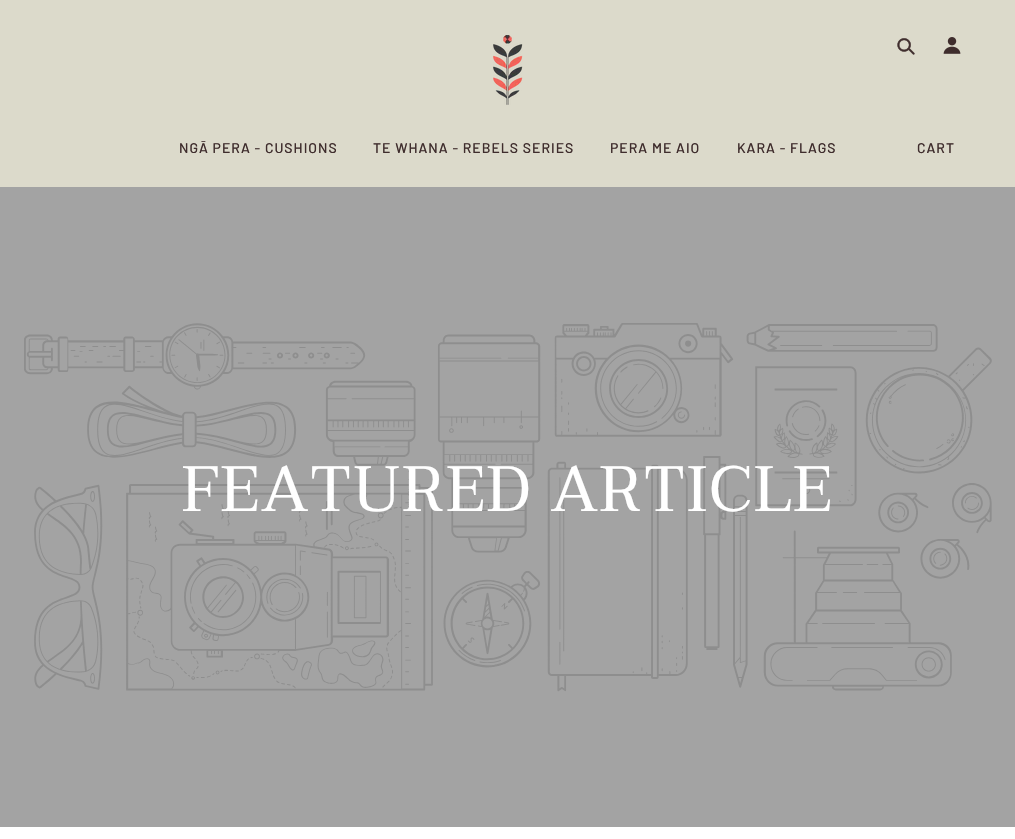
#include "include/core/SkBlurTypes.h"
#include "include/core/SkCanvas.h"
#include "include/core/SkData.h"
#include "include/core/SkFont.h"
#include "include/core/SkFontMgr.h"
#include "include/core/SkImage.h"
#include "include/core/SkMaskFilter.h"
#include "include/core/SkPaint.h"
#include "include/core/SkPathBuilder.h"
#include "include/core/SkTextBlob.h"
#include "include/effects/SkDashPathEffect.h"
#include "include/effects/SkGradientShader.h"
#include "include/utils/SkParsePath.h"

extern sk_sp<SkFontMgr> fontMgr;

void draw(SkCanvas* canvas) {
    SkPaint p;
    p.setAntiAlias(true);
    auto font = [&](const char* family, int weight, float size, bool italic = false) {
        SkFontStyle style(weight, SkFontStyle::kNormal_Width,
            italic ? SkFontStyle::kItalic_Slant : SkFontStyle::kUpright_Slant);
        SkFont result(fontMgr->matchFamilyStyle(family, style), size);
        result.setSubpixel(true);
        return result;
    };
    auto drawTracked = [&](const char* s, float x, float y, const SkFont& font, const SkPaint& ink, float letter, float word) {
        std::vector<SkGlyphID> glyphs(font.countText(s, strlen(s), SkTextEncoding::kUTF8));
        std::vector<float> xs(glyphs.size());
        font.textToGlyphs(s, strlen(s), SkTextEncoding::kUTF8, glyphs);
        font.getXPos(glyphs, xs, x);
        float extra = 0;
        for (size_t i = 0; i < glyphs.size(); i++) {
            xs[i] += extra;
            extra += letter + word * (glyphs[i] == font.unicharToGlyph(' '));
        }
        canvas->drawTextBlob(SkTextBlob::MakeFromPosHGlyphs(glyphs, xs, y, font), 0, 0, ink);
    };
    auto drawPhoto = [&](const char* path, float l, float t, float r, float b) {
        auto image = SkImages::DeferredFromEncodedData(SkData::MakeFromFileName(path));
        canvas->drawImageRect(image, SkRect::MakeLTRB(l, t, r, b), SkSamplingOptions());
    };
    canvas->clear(0xFFFFFFFF);
    p.setColor(0xFFDCDACB);
    canvas->drawRect(SkRect::MakeLTRB(0, 0, 1015, 187), p);
    drawPhoto("media/1.png", 493, 35, 523, 105);
    drawPhoto("media/2.png", 897, 38, 915, 55);
    drawPhoto("media/3.png", 943, 37, 961, 54);
    auto font1 = font("Barlow", 500, 14);
    p.setColor(0xFF3F2D2D);
    {
        const struct { const char* s; float x, y; } items[] = {
            {"NGĀ PERA - CUSHIONS", 179, 153},
            {"TE WHANA - REBELS SERIES", 373, 153},
            {"PERA ME AIO", 610, 153},
            {"KARA - FLAGS", 737, 153},
            {"CART", 917, 153},
        };
        for (auto [s, x, y] : items) {
            drawTracked(s, x, y, font1, p, 1, 0);
        }
    }
    p.setColor(0xFFA3A3A3);
    canvas->drawRect(SkRect::MakeLTRB(0, 187, 1015, 827), p);
    drawPhoto("media/4.png", 24, 323, 992, 692);
    auto font2 = font("Taviraj", 400, 64);
    p.setColor(0xFFFFFFFF);
    drawTracked("FEATURED ARTICLE", 182, 511, font2, p, 1.6f, 0);
}
